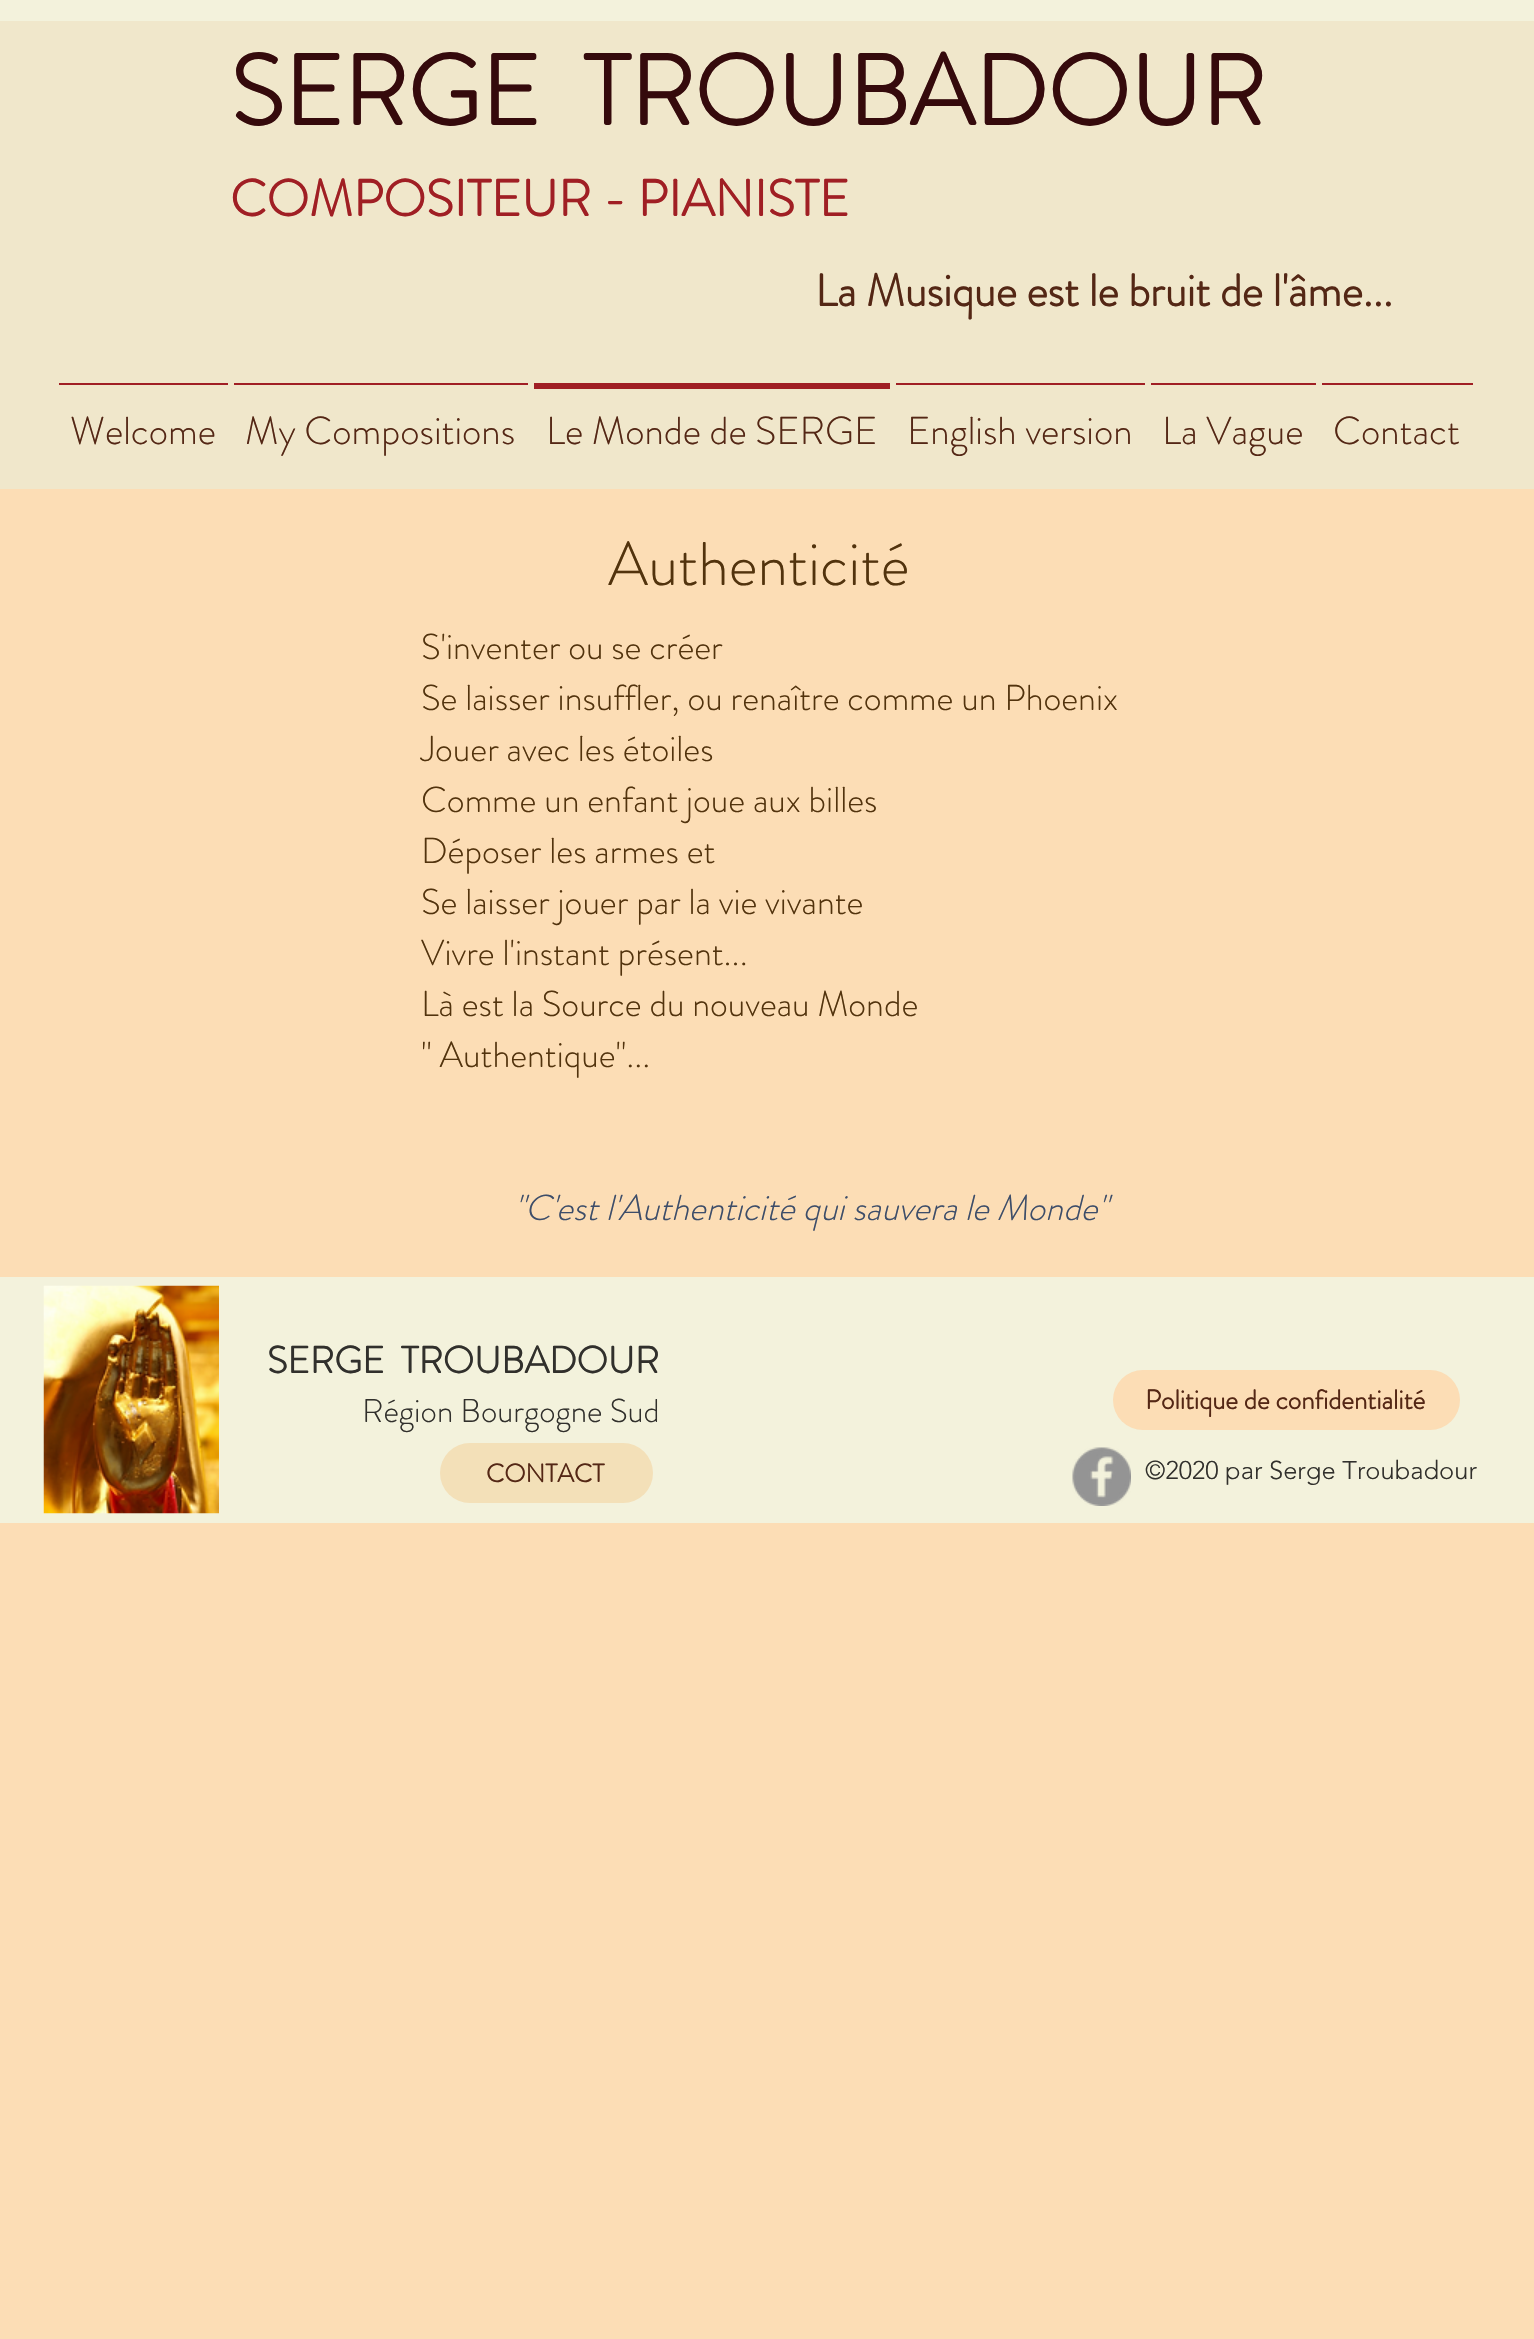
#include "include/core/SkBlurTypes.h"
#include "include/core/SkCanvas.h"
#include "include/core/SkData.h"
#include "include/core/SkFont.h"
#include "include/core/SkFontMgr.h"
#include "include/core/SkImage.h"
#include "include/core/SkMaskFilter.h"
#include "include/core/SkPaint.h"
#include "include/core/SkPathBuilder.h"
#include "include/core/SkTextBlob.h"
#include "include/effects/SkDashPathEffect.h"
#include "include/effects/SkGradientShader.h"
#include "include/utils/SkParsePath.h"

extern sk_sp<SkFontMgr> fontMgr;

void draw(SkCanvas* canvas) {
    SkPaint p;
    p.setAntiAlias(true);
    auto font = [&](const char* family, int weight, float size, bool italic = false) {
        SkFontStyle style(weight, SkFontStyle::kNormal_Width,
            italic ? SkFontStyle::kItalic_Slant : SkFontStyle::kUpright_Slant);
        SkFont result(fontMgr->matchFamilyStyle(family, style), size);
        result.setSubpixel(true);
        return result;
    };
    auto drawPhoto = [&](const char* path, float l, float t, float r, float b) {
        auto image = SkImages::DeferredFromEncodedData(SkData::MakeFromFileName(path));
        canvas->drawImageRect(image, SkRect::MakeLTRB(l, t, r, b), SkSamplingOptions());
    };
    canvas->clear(0xFFFCDDB5);
    p.setColor(0xFFF3F2DC);
    canvas->drawRect(SkRect::MakeLTRB(0, 0, 1534, 21), p);
    p.setColor(0xFFF0E7CB);
    canvas->drawRect(SkRect::MakeLTRB(0, 21, 1534, 489), p);
    auto font1 = font("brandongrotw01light", 700, 99);
    p.setColor(0xFF350A0C);
    canvas->drawString("SERGE  TROUBADOUR", 230, 125, font1, p);
    auto font2 = font("brandongrotw01light", 700, 51);
    p.setColor(0xFFA01F24);
    canvas->drawString("COMPOSITEUR - PIANISTE", 230, 216, font2, p);
    auto font3 = font("brandongrotw01light", 700, 45);
    p.setColor(0xFF542715);
    canvas->drawString("La Musique est le bruit de l'âme...", 815, 306, font3, p);
    p.setColor(0xFFA01F24);
    canvas->drawRect(SkRect::MakeLTRB(59, 383, 228, 385), p);
    auto font4 = font("brandongrotw01light", 300, 39);
    p.setColor(0xFF542715);
    canvas->drawString("Welcome", 70, 444, font4, p);
    p.setColor(0xFFA01F24);
    canvas->drawRect(SkRect::MakeLTRB(234, 383, 528, 385), p);
    p.setColor(0xFF542715);
    canvas->drawString("My Compositions", 245, 444, font4, p);
    p.setColor(0xFFA01F24);
    canvas->drawRect(SkRect::MakeLTRB(534, 383, 890, 389), p);
    p.setColor(0xFF542715);
    canvas->drawString("Le Monde de SERGE", 546, 444, font4, p);
    p.setColor(0xFFA01F24);
    canvas->drawRect(SkRect::MakeLTRB(896, 383, 1145, 385), p);
    p.setColor(0xFF542715);
    canvas->drawString("English version", 907, 444, font4, p);
    p.setColor(0xFFA01F24);
    canvas->drawRect(SkRect::MakeLTRB(1151, 383, 1316, 385), p);
    p.setColor(0xFF542715);
    canvas->drawString("La Vague", 1162, 444, font4, p);
    p.setColor(0xFFA01F24);
    canvas->drawRect(SkRect::MakeLTRB(1322, 383, 1473, 385), p);
    p.setColor(0xFF542715);
    canvas->drawString("Contact", 1333, 444, font4, p);
    auto font5 = font("brandongrotw01light", 300, 61.5f);
    p.setColor(0xFF52330D);
    canvas->drawString("Authenticité", 608, 585, font5, p);
    auto font6 = font("brandongrotw01light", 300, 36);
    {
        const struct { const char* s; float x, y; } items[] = {
            {"S'inventer ou se créer", 421, 659},
            {"Se laisser insuffler, ou renaître comme un Phoenix", 421, 710},
            {"Jouer avec les étoiles", 421, 761},
            {"Comme un enfant joue aux billes", 421, 812},
            {"Déposer les armes et", 421, 863},
            {"Se laisser jouer par la vie vivante", 421, 914},
            {"Vivre l'instant présent...", 421, 965},
            {"Là est la Source du nouveau Monde", 421, 1016},
            {"\" Authentique\"...", 421, 1067},
        };
        for (auto [s, x, y] : items) {
            canvas->drawString(s, x, y, font6, p);
        }
    }
    auto font7 = font("brandongrotw01light", 300, 36, true);
    p.setColor(0xFF3D4D69);
    canvas->drawString("\"C'est l'Authenticité qui sauvera le Monde\"", 514, 1220, font7, p);
    p.setColor(0xFFF3F2DC);
    canvas->drawRect(SkRect::MakeLTRB(0, 1277, 1534, 1523), p);
    drawPhoto("media/1.png", 43, 1285, 219, 1514);
    auto font8 = font("brandongrotw01light", 700, 37.5f);
    p.setColor(0xFF31302C);
    canvas->drawString("SERGE  TROUBADOUR", 267, 1373, font8, p);
    auto font9 = font("brandongrotw01light", 300, 33);
    canvas->drawString("Région Bourgogne Sud", 362, 1422, font9, p);
    p.setColor(0xFFFCDDB5);
    canvas->drawRoundRect(SkRect::MakeLTRB(1113, 1370, 1460, 1430), 30, 30, p);
    auto font10 = font("brandongrotw01light", 700, 27);
    p.setColor(0xFF542715);
    canvas->drawString("Politique de confidentialité", 1145, 1409, font10, p);
    p.setColor(0xFFF3E0B8);
    canvas->drawRoundRect(SkRect::MakeLTRB(440, 1443, 653, 1503), 30, 30, p);
    auto font11 = font("brandongrotw01light", 700, 25.5f);
    p.setColor(0xFF542715);
    canvas->drawString("CONTACT", 486, 1482, font11, p);
    drawPhoto("media/2.png", 1072, 1447, 1131, 1506);
    auto font12 = font("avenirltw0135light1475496", 300, 25.5f);
    p.setColor(0xFF31302C);
    canvas->drawString("©2020 par Serge Troubadour", 1145, 1479, font12, p);
}
